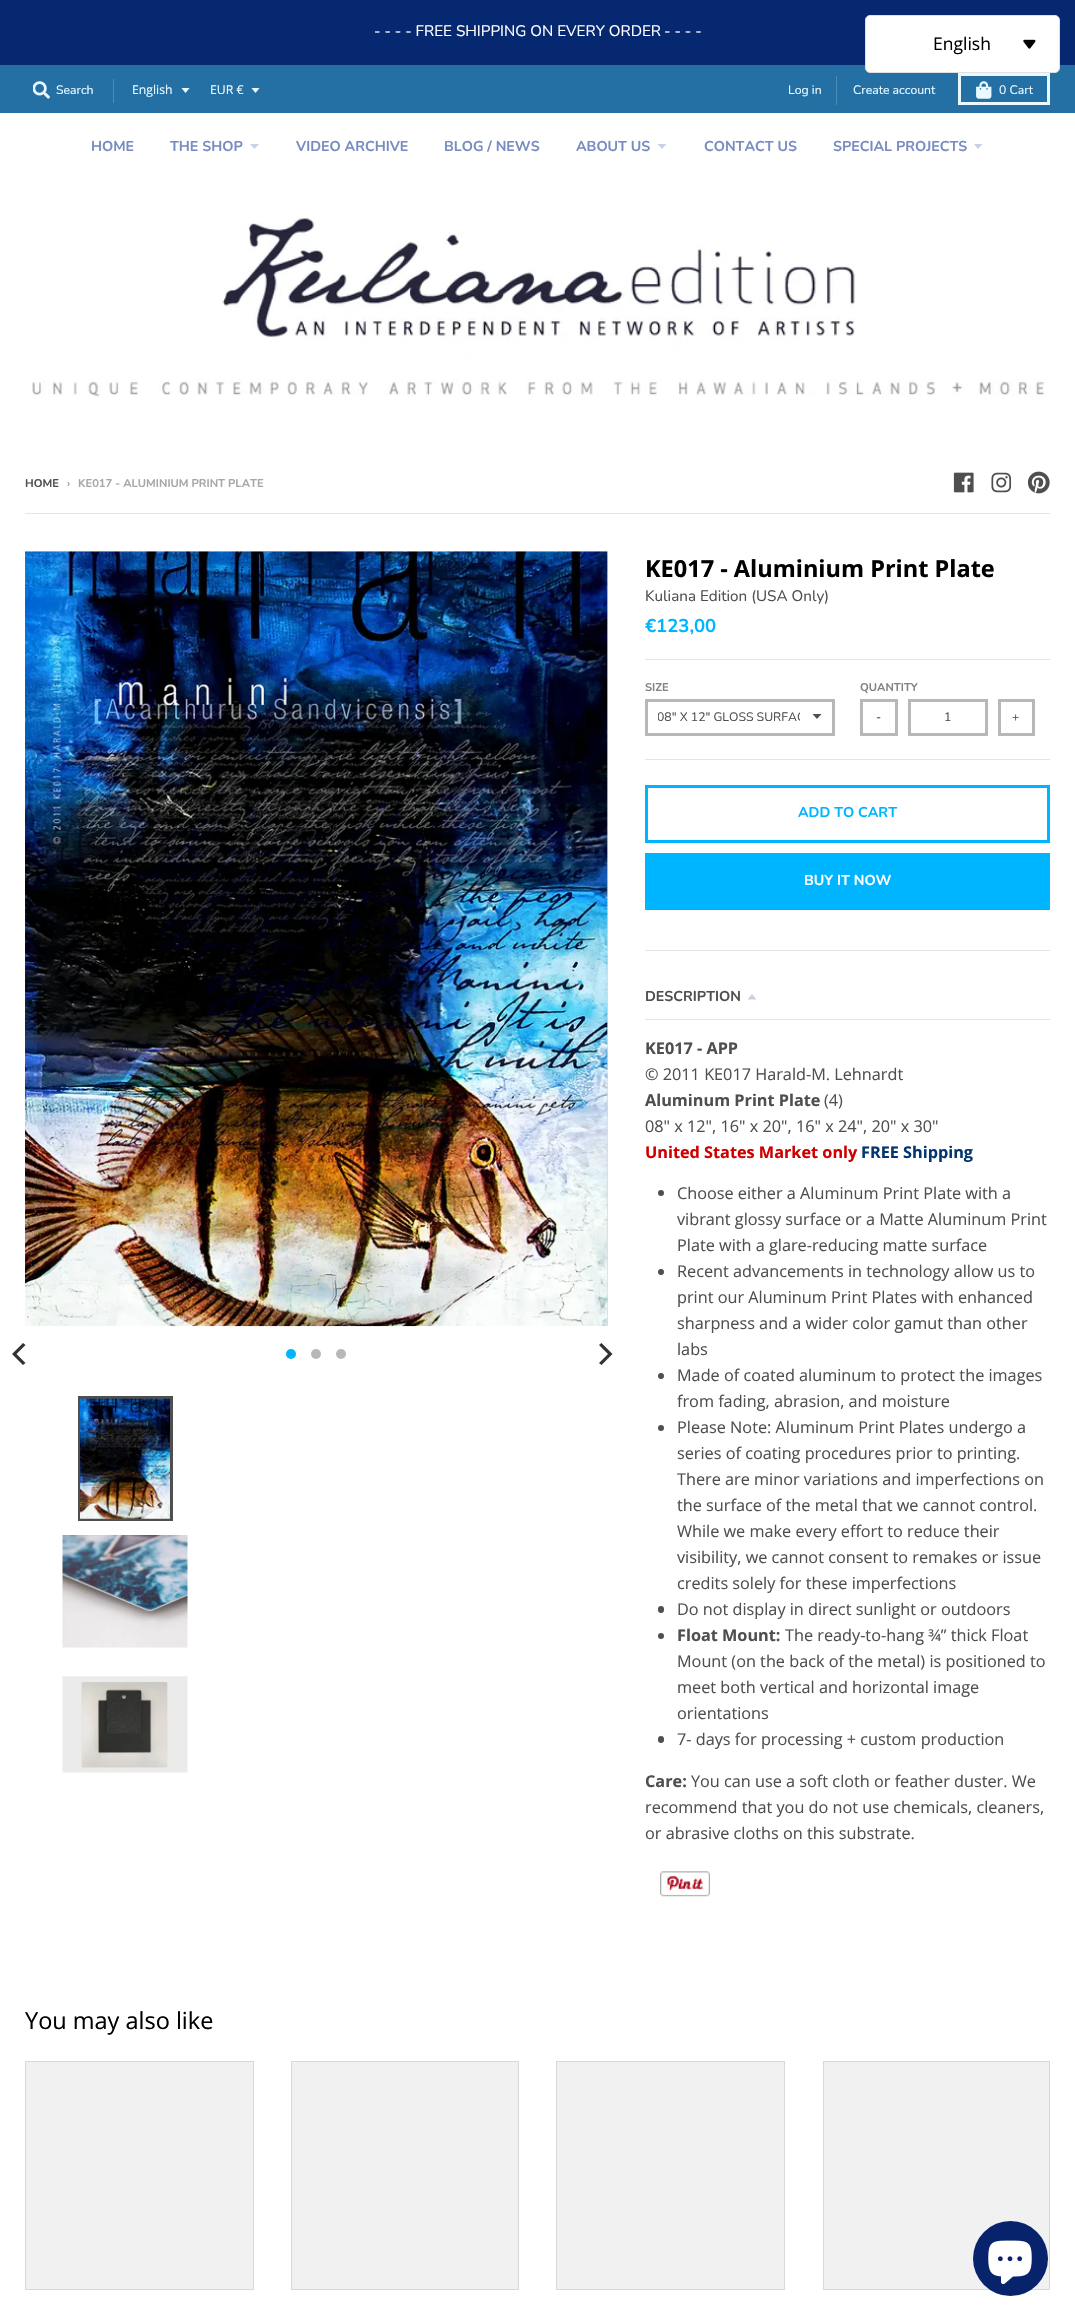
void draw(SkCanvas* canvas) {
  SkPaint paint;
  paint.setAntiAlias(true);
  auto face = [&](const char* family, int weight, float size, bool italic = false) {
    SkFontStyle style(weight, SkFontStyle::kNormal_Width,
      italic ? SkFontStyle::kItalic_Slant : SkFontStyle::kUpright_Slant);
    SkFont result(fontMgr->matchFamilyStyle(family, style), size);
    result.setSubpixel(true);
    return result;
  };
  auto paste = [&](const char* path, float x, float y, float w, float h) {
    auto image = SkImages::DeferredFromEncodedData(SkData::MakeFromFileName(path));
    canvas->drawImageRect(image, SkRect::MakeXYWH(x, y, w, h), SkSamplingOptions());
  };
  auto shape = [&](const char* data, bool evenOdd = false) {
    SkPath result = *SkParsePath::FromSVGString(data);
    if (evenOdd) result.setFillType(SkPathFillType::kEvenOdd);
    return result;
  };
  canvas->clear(0xffffffff);
  paint.setColor(0xff052870);
  canvas->drawRect(SkRect::MakeXYWH(0, 0, 1075, 65), paint);
  paint.setColor(0xff2470a4);
  canvas->drawRect(SkRect::MakeXYWH(0, 65, 1075, 48), paint);
  paste("img/1.png", 33, 81, 17, 18);
  paint.setColor(0xff4b8bb6);
  canvas->drawRect(SkRect::MakeXYWH(113, 79, 1, 24), paint);
  canvas->save();
  canvas->clipRect(SkRect::MakeXYWH(181, 88, 10, 6));
  paint.setColor(0xffe9f9ff);
  canvas->drawPath(shape("M181 87.5L185.5 93L190 87.5Z"), paint);
  canvas->restore();
  canvas->save();
  canvas->clipRect(SkRect::MakeXYWH(251, 88, 10, 6));
  canvas->drawPath(shape("M251 87.5L255.5 93L260 87.5Z"), paint);
  canvas->restore();
  paint.setColor(0xff4b8bb6);
  canvas->drawRect(SkRect::MakeXYWH(836, 76, 1, 29), paint);
  paint.setStroke(true);
  paint.setStrokeWidth(3);
  paint.setColor(0xffe9f9ff);
  canvas->drawRect(SkRect::MakeXYWH(959.5f, 74.5f, 89, 29), paint);
  paste("img/2.png", 976, 81, 16, 18);
  paint.setStroke(false);
  paint.setColor(0xffc9d1e6);
  canvas->drawPath(shape("M250 144L254.5 149L259 144Z"), paint);
  canvas->drawPath(shape("M657.5 144L662 149L666.5 144Z"), paint);
  canvas->drawPath(shape("M974 144L978 149L982.5 144Z"), paint);
  paste("img/3.png", 32, 217, 1013, 180);
  paste("img/4.png", 953, 472, 21, 21);
  paste("img/5.png", 991, 472, 21, 21);
  paste("img/6.png", 1028, 471, 22, 23);
  paint.setColor(0xffe5e5e5);
  canvas->drawRect(SkRect::MakeXYWH(25, 513, 1025, 1), paint);
  canvas->save();
  canvas->clipRect(SkRect::MakeXYWH(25, 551, 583, 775));
  paint.setColor(0x33000000);
  paint.setMaskFilter(SkMaskFilter::MakeBlur(kNormal_SkBlurStyle, 1));
  canvas->drawRect(SkRect::MakeXYWH(25, 553, 583, 775), paint);
  paint.setMaskFilter(nullptr);
  canvas->restore();
  paste("img/7.png", 25, 551, 583, 776);
  paint.setColor(0xff333333);
  canvas->drawPath(shape("M12 1354L23 1365L25.5 1363L16.5 1354L25.5 1345L23 1343Z"), paint);
  paint.setColor(0xff00b5ff);
  canvas->drawCircle(291, 1354, 5, paint);
  paint.setColor(0xffb8b8b8);
  canvas->drawCircle(316, 1354, 5, paint);
  canvas->drawCircle(341, 1354, 5, paint);
  paint.setColor(0xbfffffff);
  canvas->drawRect(SkRect::MakeXYWH(603, 1326, 1, 1), paint);
  paint.setColor(0xff333333);
  canvas->drawPath(shape("M612.5 1354L601.5 1343L599 1345L608 1354L599 1363L601.5 1365Z"), paint);
  paint.setStroke(true);
  paint.setColor(0xff4f4f4f);
  canvas->drawRect(SkRect::MakeXYWH(79.5f, 1397.5f, 92, 122), paint);
  paste("img/8.png", 80, 1398, 90, 121);
  paste("img/9.png", 62, 1535, 126, 113);
  paste("img/10.png", 62, 1676, 126, 97);
  paint.setStroke(false);
  {
    const struct { float x, y, w, h; SkColor color; } items[] = {
      {645, 950, 405, 1, 0xffe5e5e5},
      {645, 659, 405, 1, 0xffe5e5e5},
      {645, 759, 405, 1, 0xffe5e5e5},
    };
    for (auto [x, y, w, h, color] : items) {
      paint.setColor(color);
      canvas->drawRect(SkRect::MakeXYWH(x, y, w, h), paint);
    }
  }
  paint.setColor(0xff4f4f4f);
  canvas->drawPath(shape("M812.5 714L817 719L821.5 714Z"), paint);
  paint.setStroke(true);
  paint.setColor(0xffb8b8b8);
  canvas->drawRect(SkRect::MakeXYWH(646.5f, 700.5f, 187, 34), paint);
  canvas->drawRect(SkRect::MakeXYWH(861.5f, 700.5f, 35, 34), paint);
  canvas->drawRect(SkRect::MakeXYWH(909.5f, 700.5f, 77, 34), paint);
  canvas->drawRect(SkRect::MakeXYWH(999.5f, 700.5f, 34, 34), paint);
  paint.setColor(0xff00b5ff);
  canvas->drawRect(SkRect::MakeXYWH(646.5f, 786.5f, 402, 55), paint);
  paint.setStroke(false);
  canvas->drawRect(SkRect::MakeXYWH(645, 853, 405, 57), paint);
  paint.setColor(0xffe5e5e5);
  canvas->drawRect(SkRect::MakeXYWH(645, 1019, 405, 1), paint);
  paint.setColor(0xffc9d1e6);
  canvas->drawPath(shape("M747.5 999.5L752 994L756.5 999.5Z"), paint);
  paint.setColor(0xff4f4f4f);
  canvas->drawCircle(661, 1193, 3, paint);
  canvas->drawCircle(661, 1272, 3, paint);
  canvas->drawCircle(661, 1376, 3, paint);
  canvas->drawCircle(661, 1428, 3, paint);
  canvas->drawRoundRect(SkRect::MakeXYWH(658, 1606, 6, 7), 3, 3, paint);
  canvas->drawCircle(661, 1636, 3, paint);
  canvas->drawRoundRect(SkRect::MakeXYWH(658, 1736, 6, 7), 3, 3, paint);
  paste("img/11.png", 660, 1871, 50, 26);
  paint.setColor(0xfff1f1f1);
  canvas->drawRect(SkRect::MakeXYWH(25.5f, 2061.5f, 228, 228), paint);
  paint.setStroke(true);
  paint.setStrokeWidth(1);
  paint.setColor(0xffd8d8d8);
  canvas->drawRect(SkRect::MakeXYWH(25.5f, 2061.5f, 228, 228), paint);
  paint.setStroke(false);
  paint.setColor(0xfff1f1f1);
  canvas->drawRect(SkRect::MakeXYWH(291.5f, 2061.5f, 227, 228), paint);
  paint.setStroke(true);
  paint.setColor(0xffd8d8d8);
  canvas->drawRect(SkRect::MakeXYWH(291.5f, 2061.5f, 227, 228), paint);
  paint.setStroke(false);
  paint.setColor(0xfff1f1f1);
  canvas->drawRect(SkRect::MakeXYWH(556.5f, 2061.5f, 228, 228), paint);
  paint.setStroke(true);
  paint.setColor(0xffd8d8d8);
  canvas->drawRect(SkRect::MakeXYWH(556.5f, 2061.5f, 228, 228), paint);
  paint.setStroke(false);
  paint.setColor(0xfff1f1f1);
  canvas->drawRect(SkRect::MakeXYWH(823.5f, 2061.5f, 226, 228), paint);
  paint.setStroke(true);
  paint.setColor(0xffd8d8d8);
  canvas->drawRect(SkRect::MakeXYWH(823.5f, 2061.5f, 226, 228), paint);
  paint.setStroke(false);
  paint.setColor(0xffffffff);
  canvas->drawRoundRect(SkRect::MakeXYWH(865.5f, 15.5f, 194, 57), 4.5f, 4.5f, paint);
  paint.setStroke(true);
  paint.setColor(0xffe0e0e0);
  canvas->drawRoundRect(SkRect::MakeXYWH(865.5f, 15.5f, 194, 57), 4.5f, 4.5f, paint);
  paste("img/12.png", 1023, 39, 13, 10);
  paint.setStroke(false);
  paint.setColor(0xff07236b);
  canvas->drawCircle(1010.5f, 2258.5f, 37.5f, paint);
  paste("img/13.png", 988, 2240, 44, 45);
  auto f0 = face("Nunito", 400, 15.25f);
  paint.setColor(0xffffffff);
  canvas->drawString("- - - - FREE SHIPPING ON EVERY ORDER", 374, 36, f0, paint);
  canvas->drawString("- - - -", 664, 36, f0, paint);
  auto f1 = face("Nunito", 400, 12.25f);
  paint.setColor(0xffe9f9ff);
  canvas->drawString("Search", 56, 94, f1, paint);
  auto f2 = face("Open Sans", 400, 12.25f);
  canvas->drawString("English", 132, 94, f2, paint);
  canvas->drawString("EUR €", 210, 94, f2, paint);
  {
    const struct { const char* s; float x, y; } items[] = {
      {"Log in", 788, 94},
      {"Create account", 853, 94},
      {"0 Cart", 999, 94},
    };
    for (auto [s, x, y] : items) {
      canvas->drawString(s, x, y, f1, paint);
    }
  }
  auto f3 = face("Nunito", 700, 14.25f);
  paint.setColor(0xff778cc1);
  {
    const struct { const char* s; float x, y; } items[] = {
      {"HOME", 91, 151},
      {"THE SHOP", 170, 151},
      {"VIDEO ARCHIVE", 296, 151},
      {"BLOG / NEWS", 444, 151},
      {"ABOUT US", 576, 151},
      {"CONTACT US", 704, 151},
      {"SPECIAL PROJECTS", 833, 151},
    };
    for (auto [s, x, y] : items) {
      canvas->drawString(s, x, y, f3, paint);
    }
  }
  auto f4 = face("Nunito", 700, 11.2f);
  paint.setColor(0xff4f4f4f);
  canvas->drawString("HOME", 25, 487, f4, paint);
  paint.setColor(0xffa7a7a7);
  canvas->drawString("›", 67, 487, f4, paint);
  canvas->drawString("KE017 - ALUMINIUM PRINT PLATE", 78, 487, f4, paint);
  auto f5 = face("Open Sans", 700, 23.5f);
  paint.setColor(0xff000000);
  canvas->drawString("KE017 - Aluminium Print Plate", 645, 577, f5, paint);
  paint.setColor(0xff4f4f4f);
  canvas->drawString("Kuliana Edition (USA Only)", 645, 601, f0, paint);
  auto f6 = face("Nunito", 700, 18.5f);
  paint.setColor(0xff00b5ff);
  canvas->drawString("€123,00", 645, 632, f6, paint);
  paint.setColor(0xff838383);
  canvas->drawString("SIZE", 645, 691, f4, paint);
  canvas->save();
  canvas->clipRect(SkRect::MakeXYWH(658, 708, 142, 18));
  paint.setColor(0xff4f4f4f);
  canvas->drawString("08\" X 12\" GLOSS SURFAC", 657, 721, f1, paint);
  canvas->restore();
  paint.setColor(0xff838383);
  canvas->drawString("QUANTITY", 860, 691, f4, paint);
  paint.setColor(0xff4f4f4f);
  {
    const struct { const char* s; float x, y; } items[] = {
      {"-", 876, 721},
      {"1", 944, 721},
      {"+", 1012, 721},
    };
    for (auto [s, x, y] : items) {
      canvas->drawString(s, x, y, f1, paint);
    }
  }
  paint.setColor(0xff00b5ff);
  canvas->drawString("ADD TO CART", 798, 817, f3, paint);
  paint.setColor(0xffffffff);
  canvas->drawString("BUY IT NOW", 804, 885, f3, paint);
  paint.setColor(0xff4f4f4f);
  canvas->drawString("DESCRIPTION", 645, 1001, f3, paint);
  auto f7 = face("Open Sans", 700, 16.25f);
  canvas->drawString("KE017 - APP", 645, 1054, f7, paint);
  auto f8 = face("Open Sans", 400, 16.25f);
  canvas->drawString("© 2011 KE017 Harald-M. Lehnardt", 645, 1080, f8, paint);
  canvas->drawString("Aluminum Print Plate", 645, 1106, f7, paint);
  canvas->drawString("(4)", 824, 1106, f8, paint);
  canvas->drawString("08\" x 12\", 16\" x 20\", 16\" x 24\", 20\" x 30\"", 645, 1132, f8, paint);
  paint.setColor(0xffcf0000);
  canvas->drawString("United States Market only", 645, 1158, f7, paint);
  paint.setColor(0xff023670);
  canvas->drawString("FREE Shipping", 861, 1158, f7, paint);
  paint.setColor(0xff4f4f4f);
  {
    const struct { const char* s; float x, y; } items[] = {
      {"Choose either a Aluminum Print Plate with a", 677, 1199},
      {"vibrant glossy surface or a Matte Aluminum Print", 677, 1225},
      {"Plate with a glare-reducing matte surface", 677, 1251},
      {"Recent advancements in technology allow us to", 677, 1277},
      {"print our Aluminum Print Plates with enhanced", 677, 1303},
      {"sharpness and a wider color gamut than other", 677, 1329},
      {"labs", 677, 1355},
      {"Made of coated aluminum to protect the images", 677, 1381},
      {"from fading, abrasion, and moisture", 677, 1407},
      {"Please Note: Aluminum Print Plates undergo a", 677, 1433},
      {"series of coating procedures prior to printing.", 677, 1459},
      {"There are minor variations and imperfections on", 677, 1485},
      {"the surface of the metal that we cannot control.", 677, 1511},
      {"While we make every effort to reduce their", 677, 1537},
      {"visibility, we cannot consent to remakes or issue", 677, 1563},
      {"credits solely for these imperfections", 677, 1589},
      {"Do not display in direct sunlight or outdoors", 677, 1615},
    };
    for (auto [s, x, y] : items) {
      canvas->drawString(s, x, y, f8, paint);
    }
  }
  canvas->drawString("Float Mount:", 677, 1641, f7, paint);
  {
    const struct { const char* s; float x, y; } items[] = {
      {"The ready-to-hang ¾” thick Float", 785, 1641},
      {"Mount (on the back of the metal) is positioned to", 677, 1667},
      {"meet both vertical and horizontal image", 677, 1693},
      {"orientations", 677, 1719},
      {"7- days for processing + custom production", 677, 1745},
    };
    for (auto [s, x, y] : items) {
      canvas->drawString(s, x, y, f8, paint);
    }
  }
  canvas->drawString("Care:", 645, 1787, f7, paint);
  {
    const struct { const char* s; float x, y; } items[] = {
      {"You can use a soft cloth or feather duster. We", 691, 1787},
      {"recommend that you do not use chemicals, cleaners,", 645, 1813},
      {"or abrasive cloths on this substrate.", 645, 1839},
    };
    for (auto [s, x, y] : items) {
      canvas->drawString(s, x, y, f8, paint);
    }
  }
  auto f9 = face("Open Sans", 400, 23.5f);
  paint.setColor(0xff000000);
  canvas->drawString("You may also like", 25, 2029, f9, paint);
  auto f10 = face("Open Sans", 400, 17.5f);
  canvas->drawString("English", 933, 50, f10, paint);
}
